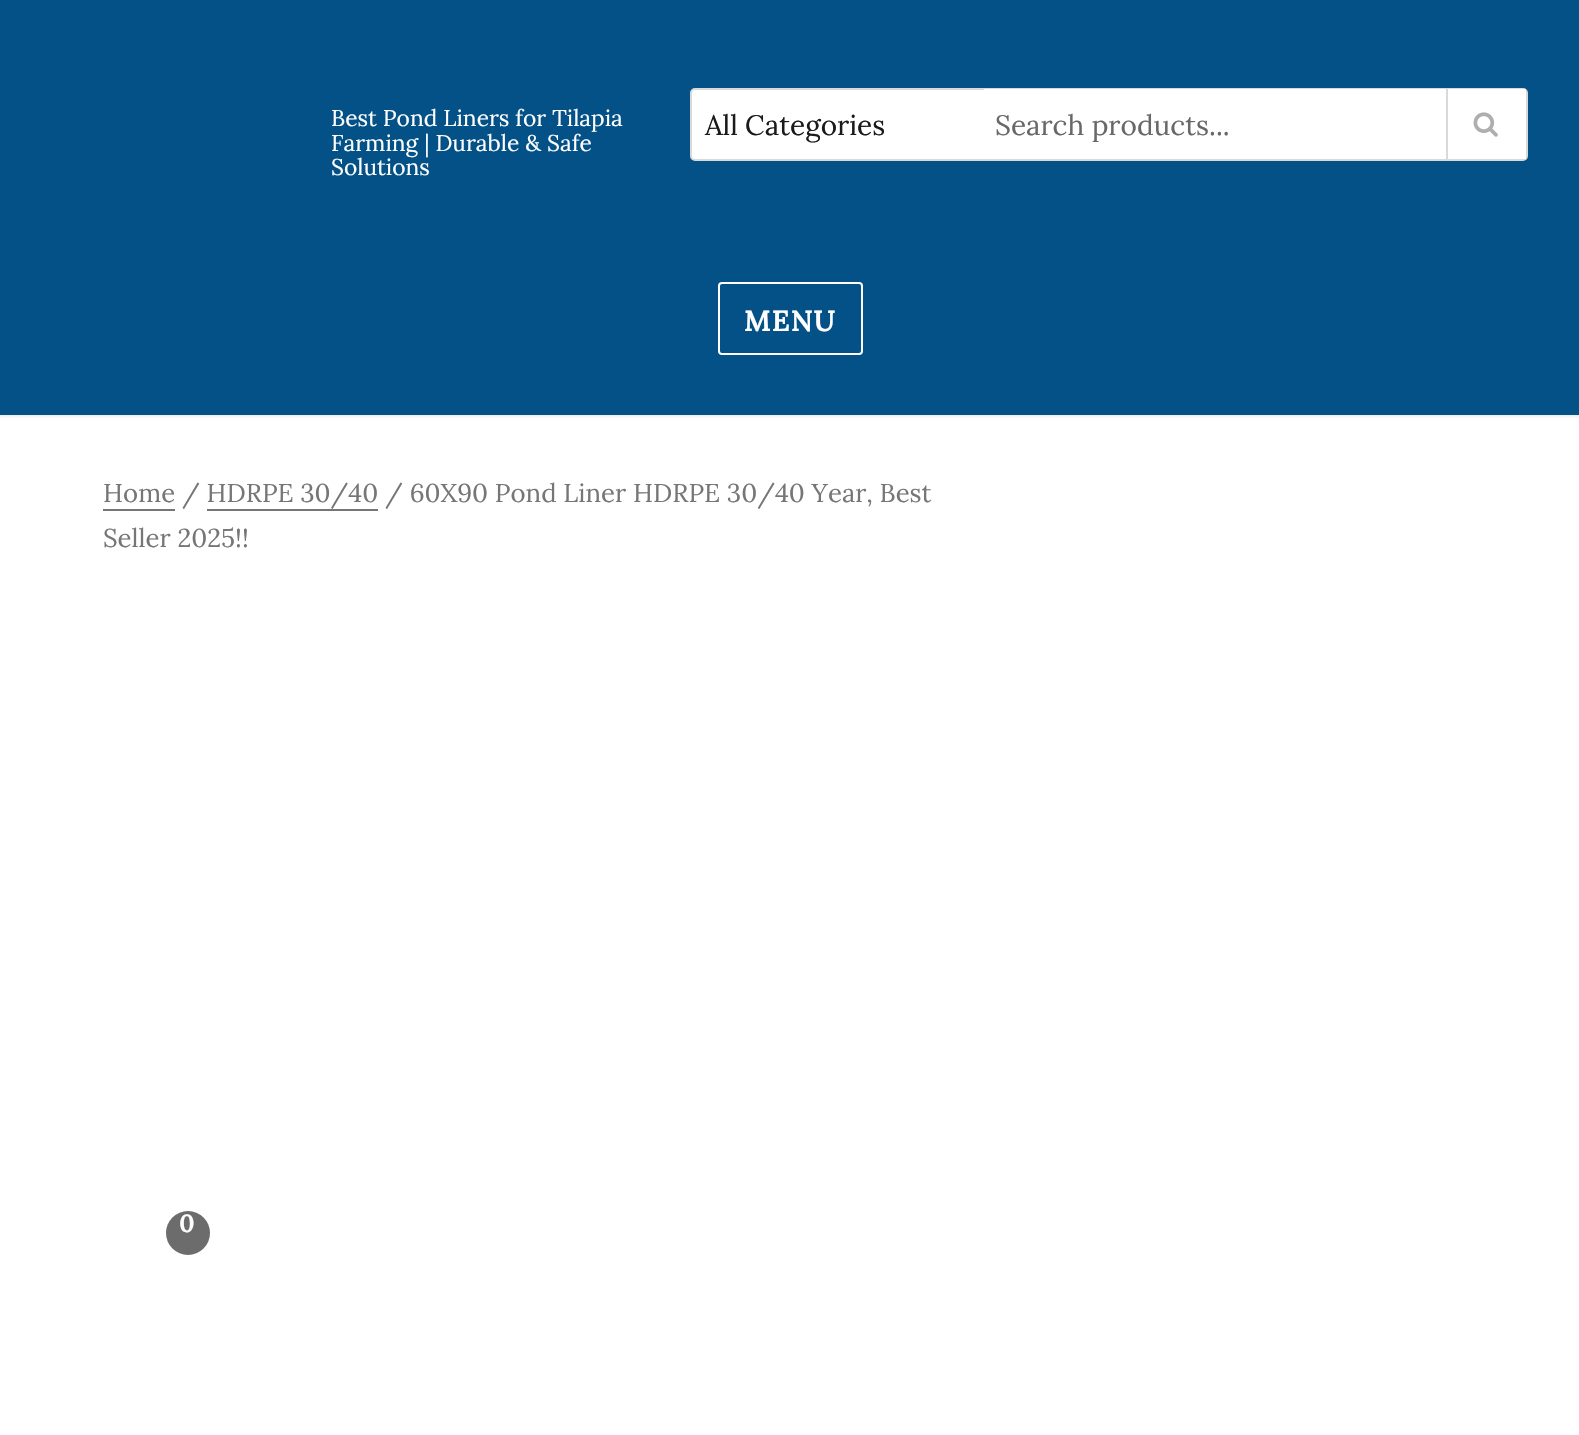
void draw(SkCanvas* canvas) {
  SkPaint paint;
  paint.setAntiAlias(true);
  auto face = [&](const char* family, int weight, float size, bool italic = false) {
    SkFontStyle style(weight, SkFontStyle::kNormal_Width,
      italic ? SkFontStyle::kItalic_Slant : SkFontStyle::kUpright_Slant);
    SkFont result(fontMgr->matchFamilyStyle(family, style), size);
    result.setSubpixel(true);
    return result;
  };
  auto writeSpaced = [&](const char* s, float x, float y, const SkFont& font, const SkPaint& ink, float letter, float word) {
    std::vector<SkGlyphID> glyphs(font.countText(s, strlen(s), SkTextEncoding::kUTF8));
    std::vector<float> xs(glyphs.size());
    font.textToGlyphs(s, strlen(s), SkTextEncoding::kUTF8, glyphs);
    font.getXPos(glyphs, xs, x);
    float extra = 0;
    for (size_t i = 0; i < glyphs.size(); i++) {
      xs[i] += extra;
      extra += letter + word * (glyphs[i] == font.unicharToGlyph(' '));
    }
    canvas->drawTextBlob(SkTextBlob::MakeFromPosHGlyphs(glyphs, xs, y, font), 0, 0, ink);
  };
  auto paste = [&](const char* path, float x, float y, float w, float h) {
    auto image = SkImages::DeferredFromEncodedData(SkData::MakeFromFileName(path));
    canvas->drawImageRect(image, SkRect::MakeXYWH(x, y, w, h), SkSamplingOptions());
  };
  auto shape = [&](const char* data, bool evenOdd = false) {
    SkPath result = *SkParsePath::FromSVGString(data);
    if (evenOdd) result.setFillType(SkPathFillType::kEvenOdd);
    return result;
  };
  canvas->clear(0xffffffff);
  paint.setColor(0xffeeeeee);
  paint.setMaskFilter(SkMaskFilter::MakeBlur(kNormal_SkBlurStyle, 1));
  canvas->drawRect(SkRect::MakeXYWH(0, 2, 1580, 415), paint);
  paint.setMaskFilter(nullptr);
  paint.setColor(0xff035186);
  canvas->drawRect(SkRect::MakeXYWH(0, 0, 1579, 415), paint);
  paint.setColor(0xffffffff);
  canvas->drawRoundRect(SkRect::MakeXYWH(691, 89, 836, 71), 4, 4, paint);
  paint.setStroke(true);
  paint.setStrokeWidth(2);
  paint.setColor(0xffd9d9d9);
  canvas->drawRoundRect(SkRect::MakeXYWH(691, 89, 836, 71), 4, 4, paint);
  paint.setStroke(false);
  paint.setColor(0xffffffff);
  canvas->drawRect(SkRect::MakeXYWH(984, 89, 542, 70), paint);
  paint.setColor(0xffd9d9d9);
  canvas->drawRect(SkRect::MakeXYWH(1446, 89, 2, 70), paint);
  paste("img/1.png", 1473, 112, 25, 25);
  paint.setStroke(true);
  paint.setColor(0xffffffff);
  canvas->drawRoundRect(SkRect::MakeXYWH(719, 283, 143, 71), 3, 3, paint);
  paint.setStroke(false);
  paint.setColor(0xff767676);
  canvas->drawPath(shape("M103 478V511H175V509H103Z"), paint);
  canvas->drawRect(SkRect::MakeXYWH(207, 509, 171, 2), paint);
  paint.setColor(0xff6c6c6c);
  canvas->drawCircle(188, 1233, 22, paint);
  auto f0 = face("Lora", 400, 22.75f);
  paint.setColor(0xffffffff);
  {
    const struct { const char* s; float x, y; } items[] = {
      {"Best Pond Liners for Tilapia", 331, 126},
      {"Farming | Durable & Safe", 331, 151},
      {"Solutions", 331, 175},
    };
    for (auto [s, x, y] : items) {
      canvas->drawString(s, x, y, f0, paint);
    }
  }
  auto f1 = face("Lora", 400, 28);
  paint.setColor(0xff1a1a1a);
  canvas->drawString("All Categories", 705, 135, f1, paint);
  canvas->save();
  canvas->clipRect(SkRect::MakeXYWH(996, 107, 518, 35));
  paint.setColor(0xff686868);
  canvas->drawString("Search products...", 995, 135, f1, paint);
  canvas->restore();
  auto f2 = face("Lora", 700, 28);
  paint.setColor(0xffffffff);
  writeSpaced("MENU", 744, 331, f2, paint, 1.5f, 0);
  auto f3 = face("Lora", 400, 25.75f);
  paint.setColor(0xff767676);
  canvas->drawString("Home / HDRPE 30/40 / 60X90 Pond Liner HDRPE 30/40 Year, Best", 103, 502, f3, paint);
  canvas->drawString("Seller 2025!!", 103, 547, f3, paint);
  auto f4 = face("Lora", 700, 24);
  paint.setColor(0xffffffff);
  writeSpaced("0", 179, 1232, f4, paint, 2, 0);
}
